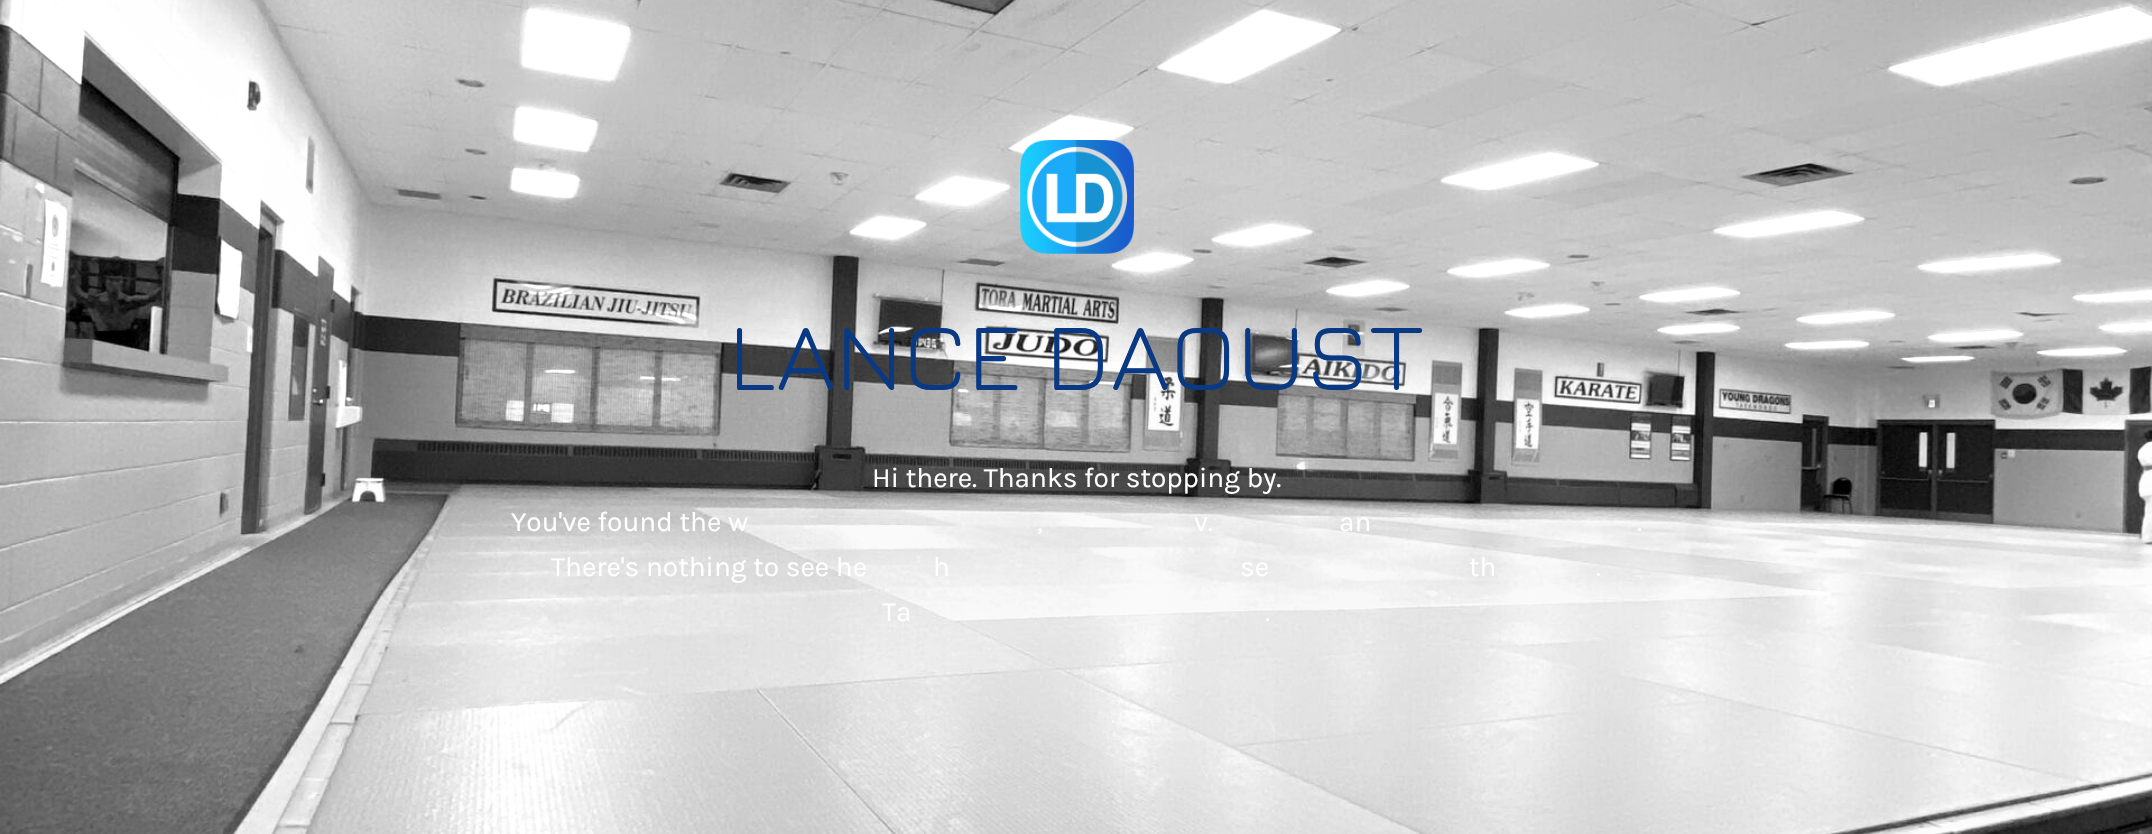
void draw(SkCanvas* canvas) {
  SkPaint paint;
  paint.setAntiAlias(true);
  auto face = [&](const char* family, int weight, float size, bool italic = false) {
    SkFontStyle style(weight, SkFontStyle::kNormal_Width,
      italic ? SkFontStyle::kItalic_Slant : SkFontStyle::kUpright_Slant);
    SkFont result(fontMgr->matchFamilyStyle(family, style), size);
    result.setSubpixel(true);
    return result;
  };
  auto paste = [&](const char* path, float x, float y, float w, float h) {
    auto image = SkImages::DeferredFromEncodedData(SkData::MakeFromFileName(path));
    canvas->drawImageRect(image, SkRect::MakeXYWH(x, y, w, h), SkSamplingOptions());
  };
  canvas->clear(0xffffffff);
  paste("img/1.png", 0, 0, 2152, 834);
  paste("img/2.png", 1020, 140, 114, 114);
  auto f0 = face("Jura", 300, 96.25f);
  paint.setColor(0xff0a3984);
  canvas->drawString("LANCE DAOUST", 728, 390, f0, paint);
  auto f1 = face("Karla", 400, 28);
  paint.setColor(0xffffffff);
  {
    const struct { const char* s; float x, y; } items[] = {
      {"Hi there. Thanks for stopping by.", 872, 487},
      {"You've found the w", 511, 531},
      {",", 1037, 531},
      {"v.", 1194, 531},
      {"an", 1339, 531},
      {".", 1637, 531},
      {"There's nothing to see he", 551, 576},
      {"h", 933, 576},
      {"se", 1240, 576},
      {"th", 1469, 576},
      {".", 1596, 576},
      {"Ta", 882, 621},
      {".", 1265, 621},
    };
    for (auto [s, x, y] : items) {
      canvas->drawString(s, x, y, f1, paint);
    }
  }
}
